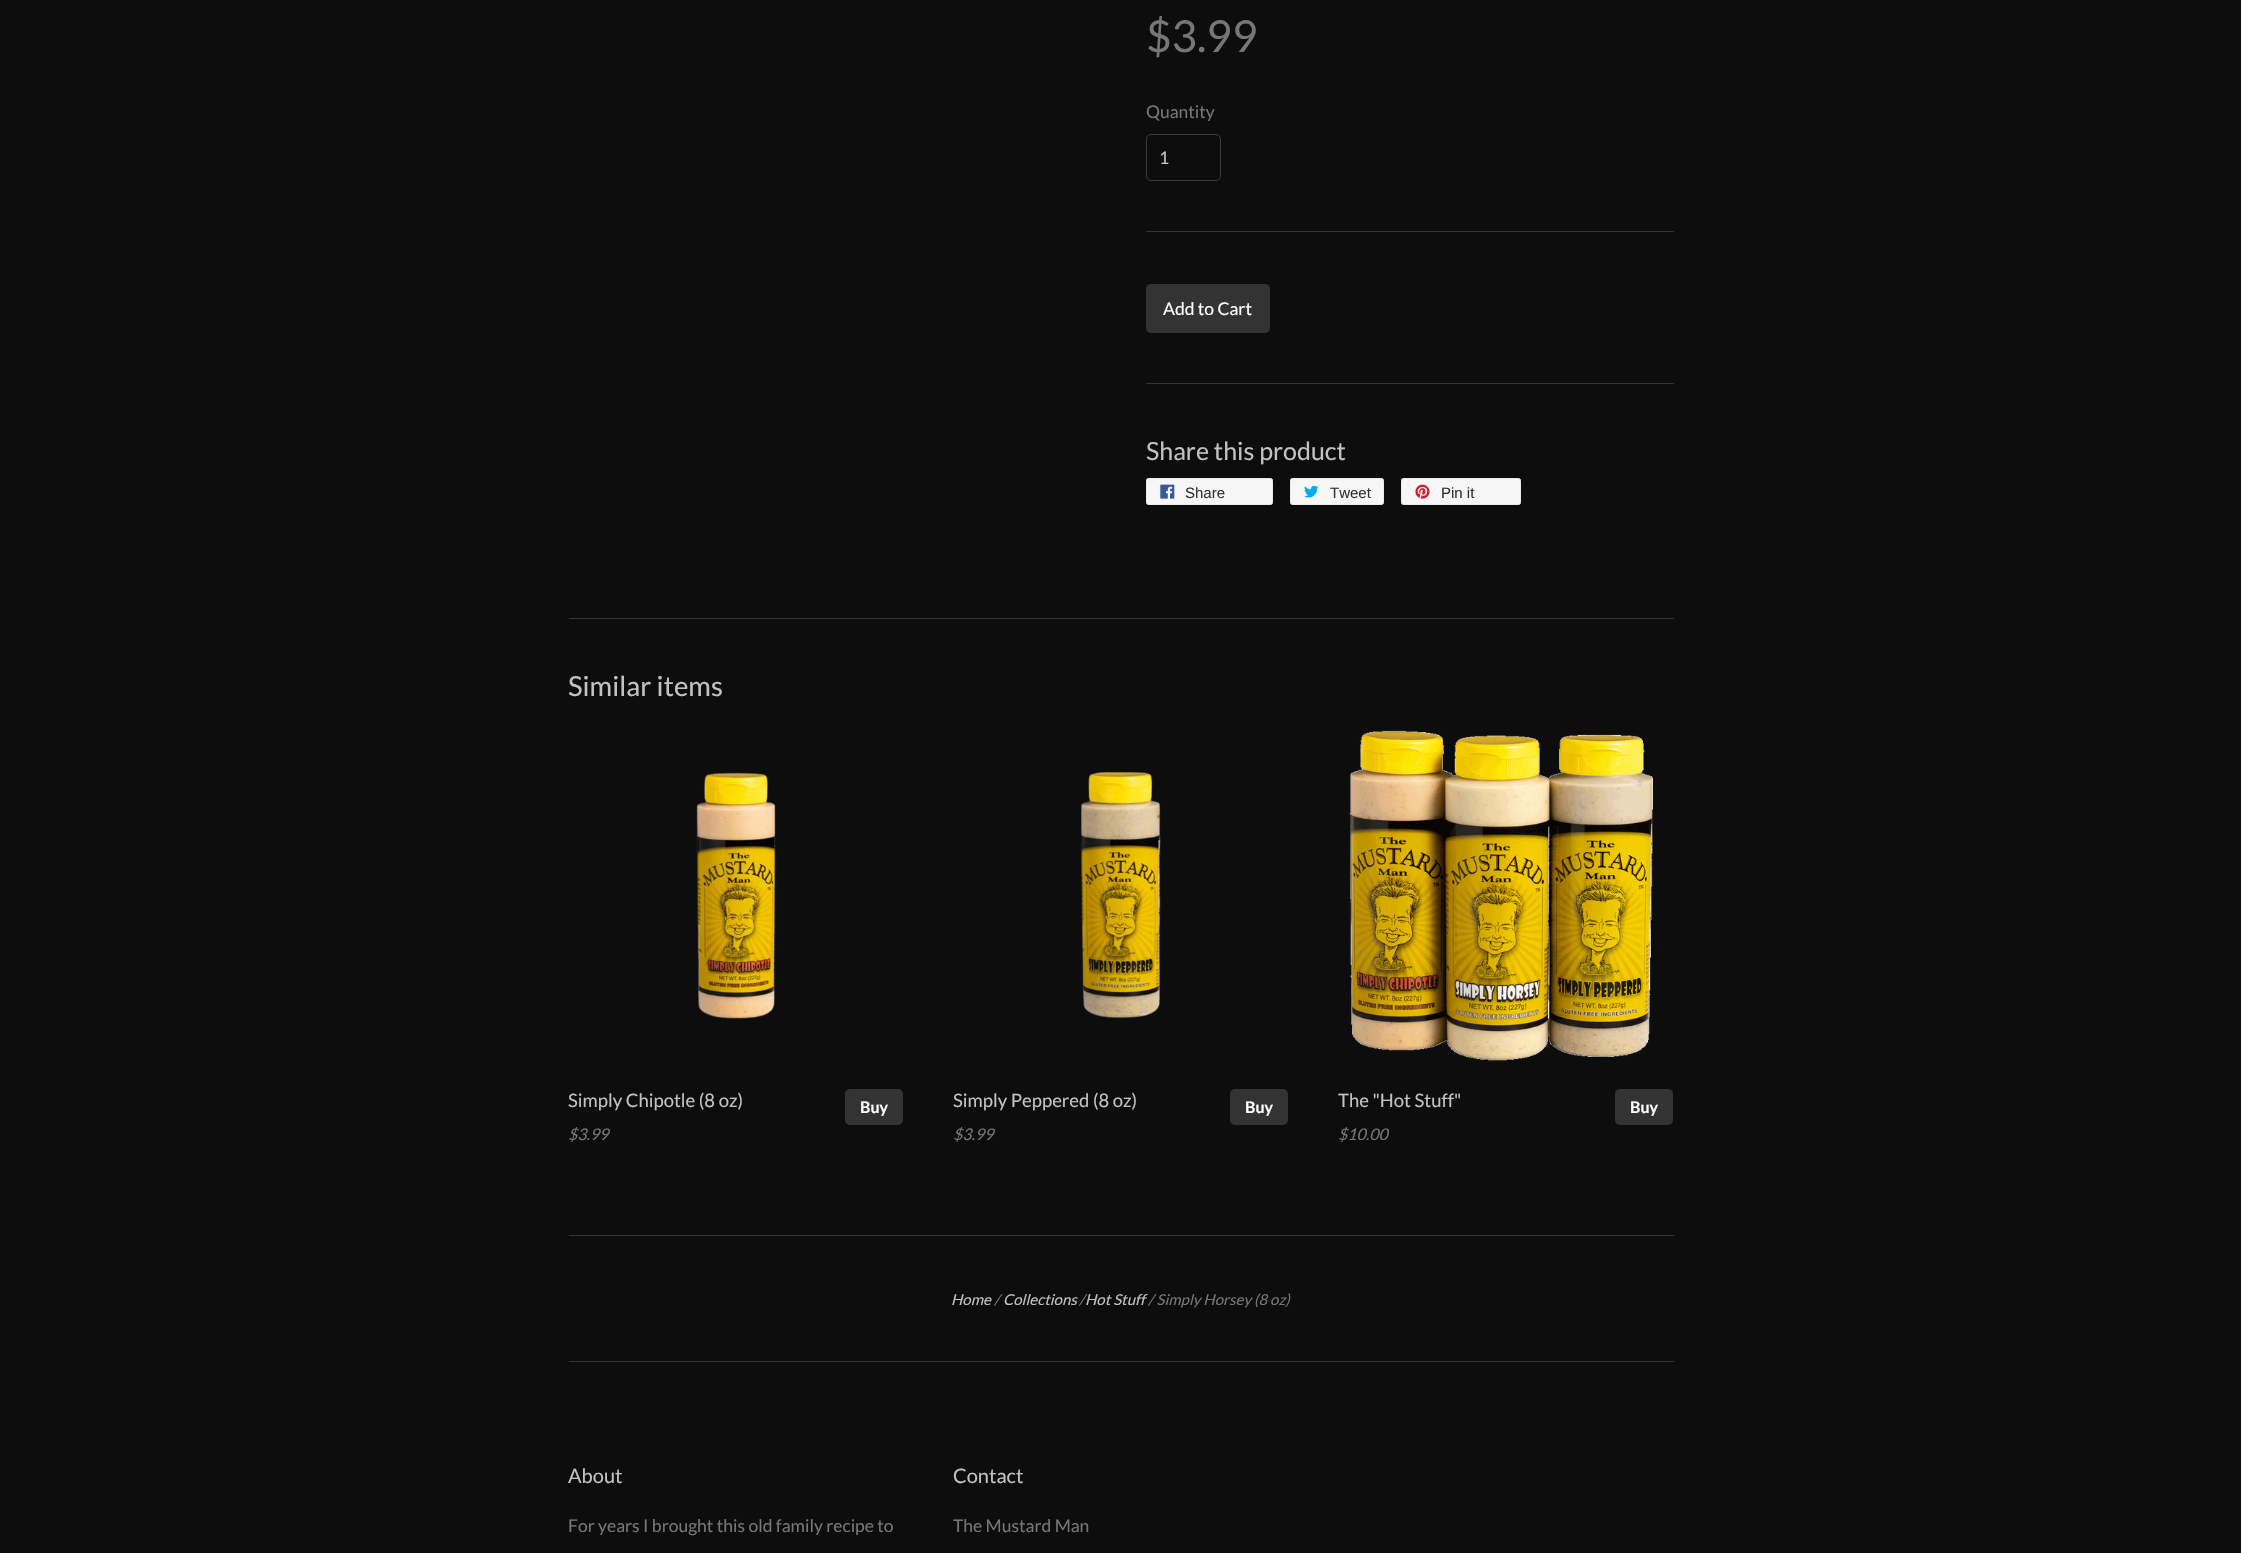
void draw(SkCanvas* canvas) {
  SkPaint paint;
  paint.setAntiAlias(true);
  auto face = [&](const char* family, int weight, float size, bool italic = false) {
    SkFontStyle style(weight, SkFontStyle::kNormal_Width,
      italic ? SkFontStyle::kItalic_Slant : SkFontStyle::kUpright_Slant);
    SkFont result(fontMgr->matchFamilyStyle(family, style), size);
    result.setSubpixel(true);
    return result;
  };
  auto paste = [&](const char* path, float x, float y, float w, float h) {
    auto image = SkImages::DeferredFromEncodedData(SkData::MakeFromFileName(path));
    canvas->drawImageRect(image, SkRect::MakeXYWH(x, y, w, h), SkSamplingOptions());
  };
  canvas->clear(0xff0d0d0d);
  paint.setStroke(true);
  paint.setStrokeWidth(1);
  paint.setColor(0xff3b3b3b);
  canvas->drawRoundRect(SkRect::MakeXYWH(1146.5f, 134.5f, 74, 46), 4.5f, 4.5f, paint);
  paint.setStroke(false);
  paint.setColor(0xff333333);
  canvas->drawRect(SkRect::MakeXYWH(1146, 231, 528, 1), paint);
  canvas->drawRoundRect(SkRect::MakeXYWH(1146, 284, 124, 49), 5, 5, paint);
  canvas->drawRect(SkRect::MakeXYWH(1146, 383, 528, 1), paint);
  paint.setColor(0xfff6f6f6);
  canvas->drawRoundRect(SkRect::MakeXYWH(1146.5f, 478.5f, 126, 26), 2, 2, paint);
  paint.setStroke(true);
  paint.setColor(0xffe9e9e9);
  canvas->drawRoundRect(SkRect::MakeXYWH(1146.5f, 478.5f, 126, 26), 2, 2, paint);
  paste("img/1.png", 1160, 484, 15, 15);
  paint.setStroke(false);
  paint.setColor(0xfff6f6f6);
  canvas->drawRoundRect(SkRect::MakeXYWH(1290.5f, 478.5f, 93, 26), 2, 2, paint);
  paint.setStroke(true);
  paint.setColor(0xffe9e9e9);
  canvas->drawRoundRect(SkRect::MakeXYWH(1290.5f, 478.5f, 93, 26), 2, 2, paint);
  paste("img/2.png", 1304, 485, 15, 13);
  paint.setStroke(false);
  paint.setColor(0xfff6f6f6);
  canvas->drawRoundRect(SkRect::MakeXYWH(1401.5f, 478.5f, 119, 26), 2, 2, paint);
  paint.setStroke(true);
  paint.setColor(0xffe9e9e9);
  canvas->drawRoundRect(SkRect::MakeXYWH(1401.5f, 478.5f, 119, 26), 2, 2, paint);
  paste("img/3.png", 1415, 484, 15, 15);
  paint.setStroke(false);
  paint.setColor(0xff333333);
  canvas->drawRect(SkRect::MakeXYWH(569, 618, 1105, 1), paint);
  paste("img/4.png", 696, 772, 80, 247);
  canvas->drawRoundRect(SkRect::MakeXYWH(845, 1089, 58, 36), 5, 5, paint);
  paste("img/5.png", 1081, 772, 80, 247);
  canvas->drawRoundRect(SkRect::MakeXYWH(1230, 1089, 58, 36), 5, 5, paint);
  paste("img/6.png", 1349, 730, 305, 332);
  canvas->drawRoundRect(SkRect::MakeXYWH(1615, 1089, 58, 36), 5, 5, paint);
  canvas->drawRect(SkRect::MakeXYWH(569, 1235, 1105, 1), paint);
  canvas->drawRect(SkRect::MakeXYWH(569, 1361, 1105, 1), paint);
  auto f0 = face("Lato", 400, 44);
  paint.setColor(0xff777777);
  canvas->drawString("$3.99", 1146, 52, f0, paint);
  auto f1 = face("Lato", 400, 17.5f);
  canvas->drawString("Quantity", 1146, 118, f1, paint);
  paint.setColor(0xffc2c2c2);
  canvas->drawString("1", 1159, 164, f1, paint);
  paint.setColor(0xffffffff);
  canvas->drawString("Add to Cart", 1163, 315, f1, paint);
  auto f2 = face("Lato", 400, 25);
  paint.setColor(0xffc2c2c2);
  canvas->drawString("Share this product", 1146, 460, f2, paint);
  auto f3 = face("Liberation Sans", 400, 15);
  paint.setColor(0xff333333);
  {
    const struct { const char* s; float x, y; } items[] = {
      {"Share", 1185, 498},
      {"Tweet", 1330, 498},
      {"Pin it", 1441, 498},
    };
    for (auto [s, x, y] : items) {
      canvas->drawString(s, x, y, f3, paint);
    }
  }
  auto f4 = face("Lato", 400, 27.5f);
  paint.setColor(0xffc2c2c2);
  canvas->drawString("Similar items", 568, 696, f4, paint);
  auto f5 = face("Lato", 400, 18.5f);
  canvas->drawString("Simply Chipotle (8 oz)", 568, 1107, f5, paint);
  auto f6 = face("Lato", 400, 16, true);
  paint.setColor(0xff777777);
  canvas->drawString("$3.99", 568, 1140, f6, paint);
  auto f7 = face("Lato", 700, 16);
  paint.setColor(0xffffffff);
  canvas->drawString("Buy", 860, 1113, f7, paint);
  paint.setColor(0xffc2c2c2);
  canvas->drawString("Simply Peppered (8 oz)", 953, 1107, f5, paint);
  paint.setColor(0xff777777);
  canvas->drawString("$3.99", 953, 1140, f6, paint);
  paint.setColor(0xffffffff);
  canvas->drawString("Buy", 1245, 1113, f7, paint);
  paint.setColor(0xffc2c2c2);
  canvas->drawString("The \"Hot Stuff\"", 1338, 1107, f5, paint);
  paint.setColor(0xff777777);
  canvas->drawString("$10.00", 1338, 1140, f6, paint);
  paint.setColor(0xffffffff);
  canvas->drawString("Buy", 1630, 1113, f7, paint);
  auto f8 = face("Lato", 400, 15, true);
  paint.setColor(0xffc2c2c2);
  canvas->drawString("Home", 951, 1305, f8, paint);
  paint.setColor(0xff777777);
  canvas->drawString("/", 994, 1305, f8, paint);
  paint.setColor(0xffc2c2c2);
  canvas->drawString("Collections", 1003, 1305, f8, paint);
  paint.setColor(0xff777777);
  canvas->drawString("/", 1079, 1305, f8, paint);
  paint.setColor(0xffc2c2c2);
  canvas->drawString("Hot Stuff", 1085, 1305, f8, paint);
  paint.setColor(0xff777777);
  canvas->drawString("/ Simply Horsey (8 oz)", 1148, 1305, f8, paint);
  auto f9 = face("Lato", 400, 20);
  paint.setColor(0xffc2c2c2);
  canvas->drawString("About", 568, 1483, f9, paint);
  paint.setColor(0xff777777);
  canvas->drawString("For years I brought this old family recipe to", 568, 1532, f1, paint);
  paint.setColor(0xffc2c2c2);
  canvas->drawString("Contact", 953, 1483, f9, paint);
  paint.setColor(0xff777777);
  canvas->drawString("The Mustard Man", 953, 1532, f1, paint);
}
